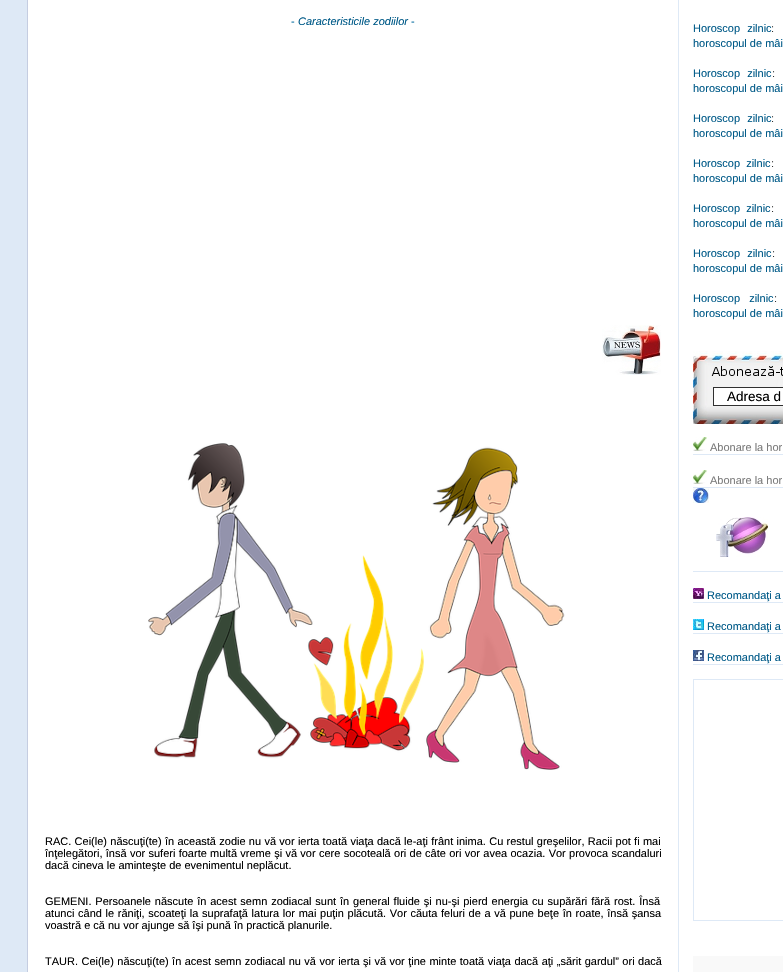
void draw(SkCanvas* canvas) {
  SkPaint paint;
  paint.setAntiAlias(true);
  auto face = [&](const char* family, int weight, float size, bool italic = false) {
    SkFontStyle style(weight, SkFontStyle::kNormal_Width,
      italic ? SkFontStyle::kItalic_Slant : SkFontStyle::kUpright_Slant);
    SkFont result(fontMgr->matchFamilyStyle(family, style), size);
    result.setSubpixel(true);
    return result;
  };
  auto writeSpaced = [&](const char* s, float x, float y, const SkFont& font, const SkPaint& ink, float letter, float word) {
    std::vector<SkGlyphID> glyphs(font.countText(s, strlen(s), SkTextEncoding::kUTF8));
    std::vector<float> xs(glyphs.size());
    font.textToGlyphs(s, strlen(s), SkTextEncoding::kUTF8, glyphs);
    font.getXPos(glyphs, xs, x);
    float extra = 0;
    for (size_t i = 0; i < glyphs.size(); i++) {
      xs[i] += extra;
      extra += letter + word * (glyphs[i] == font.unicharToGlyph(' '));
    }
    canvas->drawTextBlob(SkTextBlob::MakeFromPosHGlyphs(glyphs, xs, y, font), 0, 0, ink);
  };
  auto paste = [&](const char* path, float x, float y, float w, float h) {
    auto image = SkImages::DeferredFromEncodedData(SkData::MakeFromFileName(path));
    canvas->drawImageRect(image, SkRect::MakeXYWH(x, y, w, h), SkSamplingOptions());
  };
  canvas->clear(0xffdee9f6);
  paste("img/1.png", 27, 0, 756, 972);
  paste("img/2.png", 602, 325, 59, 50);
  paste("img/3.png", 148, 443, 417, 327);
  paste("img/4.png", 693, 351, 90, 73);
  paint.setColor(0xffffffff);
  canvas->drawRect(SkRect::MakeXYWH(713.5f, 387.5f, 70, 18), paint);
  paint.setStroke(true);
  paint.setStrokeWidth(1);
  paint.setColor(0xff303030);
  canvas->drawRect(SkRect::MakeXYWH(713.5f, 387.5f, 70, 18), paint);
  paste("img/5.png", 693, 437, 14, 14);
  paint.setStroke(false);
  paint.setColor(0xffdee9f6);
  canvas->drawRect(SkRect::MakeXYWH(693, 454, 90, 1), paint);
  paste("img/5.png", 693, 470, 14, 14);
  canvas->drawRect(SkRect::MakeXYWH(693, 487, 90, 1), paint);
  paste("img/6.png", 693, 488, 16, 15);
  paste("img/7.png", 716, 517, 52, 40);
  canvas->drawRect(SkRect::MakeXYWH(693, 571, 90, 1), paint);
  paste("img/8.png", 693, 588, 11, 11);
  canvas->drawRect(SkRect::MakeXYWH(693, 602, 90, 1), paint);
  paste("img/9.png", 693, 619, 11, 11);
  canvas->drawRect(SkRect::MakeXYWH(693, 633, 90, 1), paint);
  paste("img/10.png", 693, 650, 11, 11);
  canvas->drawRect(SkRect::MakeXYWH(693, 664, 90, 1), paint);
  paint.setStroke(true);
  canvas->drawRect(SkRect::MakeXYWH(693.5f, 679.5f, 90, 241), paint);
  paint.setStroke(false);
  paint.setColor(0xfff9f9f9);
  canvas->drawRect(SkRect::MakeXYWH(693, 956, 90, 16), paint);
  auto f0 = face("Liberation Sans", 400, 11);
  paint.setColor(0xff00699e);
  canvas->drawString("-", 291, 25, f0, paint);
  auto f1 = face("Liberation Sans", 400, 11, true);
  paint.setColor(0xff005a88);
  canvas->drawString("Caracteristicile zodiilor", 298, 25, f1, paint);
  paint.setColor(0xff00699e);
  canvas->drawString("-", 411, 25, f0, paint);
  paint.setColor(0xff000000);
  writeSpaced("RAC. Cei(le) născuţi(te) în această zodie nu vă vor ierta toată viaţa dacă le-aţi frânt inima. Cu restul greşelilor, Racii pot fi mai", 45, 845, f0, paint, 0, 0.25f);
  writeSpaced("înţelegători, însă vor suferi foarte multă vreme şi vă vor cere socoteală ori de câte ori vor avea ocazia. Vor provoca scandaluri", 45, 857, f0, paint, 0, 0.25f);
  canvas->drawString("dacă cineva le aminteşte de evenimentul neplăcut.", 45, 869, f0, paint);
  writeSpaced("GEMENI. Persoanele născute în acest semn zodiacal sunt în general fluide şi nu-şi pierd energia cu supărări fără rost. Însă", 45, 905, f0, paint, 0, 0.8f);
  writeSpaced("atunci când le răniţi, scoateţi la suprafaţă latura lor mai puţin plăcută. Vor căuta feluri de a vă pune beţe în roate, însă şansa", 45, 917, f0, paint, 0, 0.6f);
  canvas->drawString("voastră e că nu vor ajunge să îşi pună în practică planurile.", 45, 929, f0, paint);
  writeSpaced("TAUR. Cei(le) născuţi(te) în acest semn zodiacal nu vă vor ierta şi vă vor ţine minte toată viaţa dacă aţi „sărit gardul” ori dacă", 45, 965, f0, paint, 0, 0.4f);
  paint.setColor(0xff005a88);
  writeSpaced("Horoscop zilnic", 693, 32, f0, paint, 0, 4);
  paint.setColor(0xff303030);
  canvas->drawString(":", 771, 32, f0, paint);
  paint.setColor(0xff005a88);
  canvas->drawString("horoscopul de mâi", 693, 47, f0, paint);
  writeSpaced("Horoscop zilnic", 693, 77, f0, paint, 0, 4);
  paint.setColor(0xff303030);
  canvas->drawString(":", 772, 77, f0, paint);
  paint.setColor(0xff005a88);
  canvas->drawString("horoscopul de mâi", 693, 92, f0, paint);
  writeSpaced("Horoscop zilnic", 693, 122, f0, paint, 0, 4);
  paint.setColor(0xff303030);
  canvas->drawString(":", 771, 122, f0, paint);
  paint.setColor(0xff005a88);
  canvas->drawString("horoscopul de mâi", 693, 137, f0, paint);
  writeSpaced("Horoscop zilnic", 693, 167, f0, paint, 0, 3);
  paint.setColor(0xff303030);
  canvas->drawString(":", 771, 167, f0, paint);
  paint.setColor(0xff005a88);
  canvas->drawString("horoscopul de mâi", 693, 182, f0, paint);
  writeSpaced("Horoscop zilnic", 693, 212, f0, paint, 0, 3);
  paint.setColor(0xff303030);
  canvas->drawString(":", 771, 212, f0, paint);
  paint.setColor(0xff005a88);
  canvas->drawString("horoscopul de mâi", 693, 227, f0, paint);
  writeSpaced("Horoscop zilnic", 693, 257, f0, paint, 0, 4);
  paint.setColor(0xff303030);
  canvas->drawString(":", 772, 257, f0, paint);
  paint.setColor(0xff005a88);
  canvas->drawString("horoscopul de mâi", 693, 272, f0, paint);
  writeSpaced("Horoscop zilnic", 693, 302, f0, paint, 0, 6);
  paint.setColor(0xff303030);
  canvas->drawString(":", 774, 302, f0, paint);
  paint.setColor(0xff005a88);
  canvas->drawString("horoscopul de mâi", 693, 317, f0, paint);
  auto f2 = face("Liberation Sans", 400, 13.5f);
  paint.setColor(0xff000000);
  canvas->drawString("Adresa d", 727, 401, f2, paint);
  paint.setColor(0xff7b7b7b);
  canvas->drawString("Abonare la hor", 710, 451, f0, paint);
  canvas->drawString("Abonare la hor", 710, 484, f0, paint);
  paint.setColor(0xff005a88);
  {
    const struct { const char* s; float x, y; } items[] = {
      {"Recomandaţi a", 707, 599},
      {"Recomandaţi a", 707, 630},
      {"Recomandaţi a", 707, 661},
    };
    for (auto [s, x, y] : items) {
      canvas->drawString(s, x, y, f0, paint);
    }
  }
}
